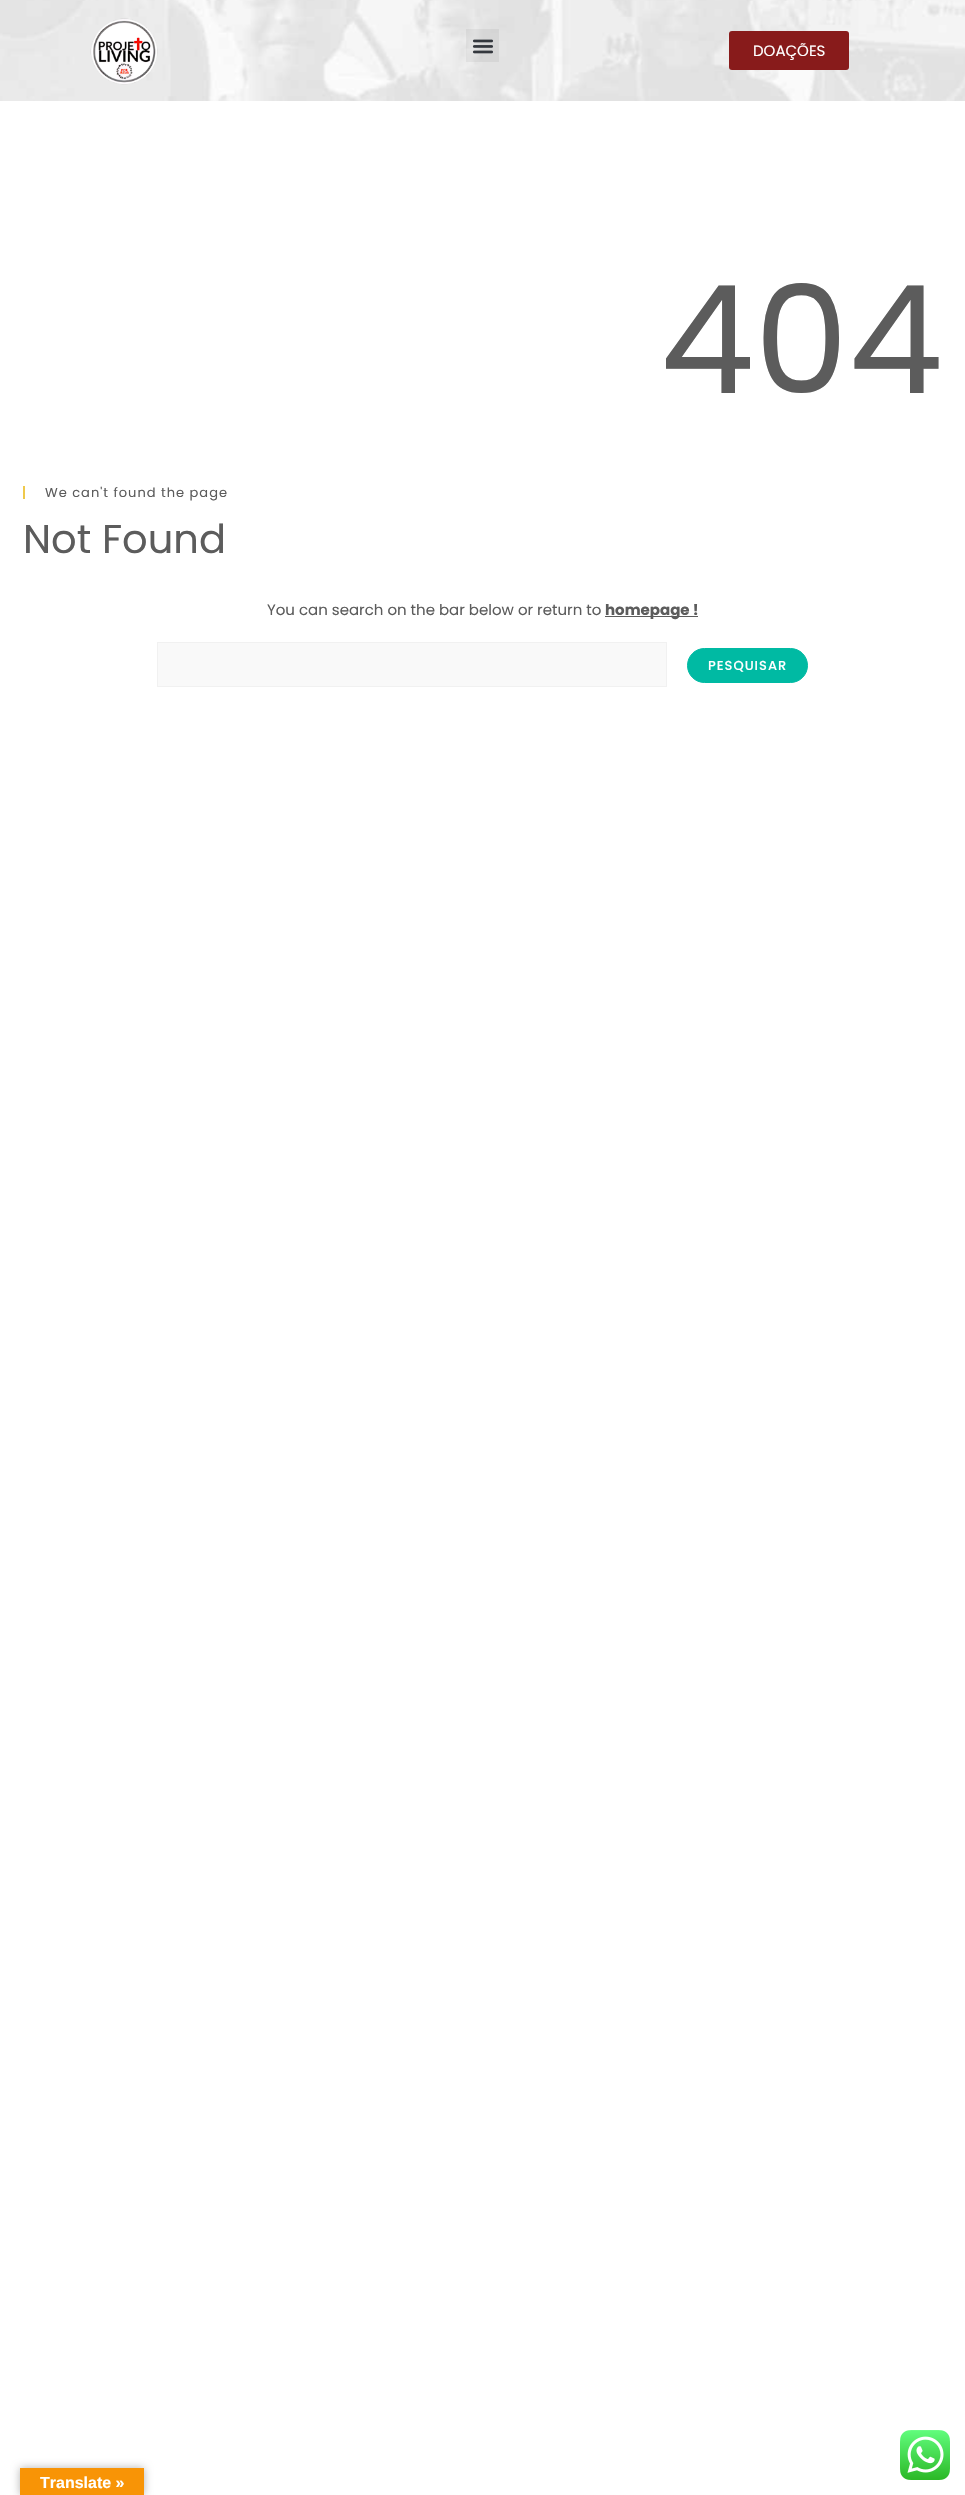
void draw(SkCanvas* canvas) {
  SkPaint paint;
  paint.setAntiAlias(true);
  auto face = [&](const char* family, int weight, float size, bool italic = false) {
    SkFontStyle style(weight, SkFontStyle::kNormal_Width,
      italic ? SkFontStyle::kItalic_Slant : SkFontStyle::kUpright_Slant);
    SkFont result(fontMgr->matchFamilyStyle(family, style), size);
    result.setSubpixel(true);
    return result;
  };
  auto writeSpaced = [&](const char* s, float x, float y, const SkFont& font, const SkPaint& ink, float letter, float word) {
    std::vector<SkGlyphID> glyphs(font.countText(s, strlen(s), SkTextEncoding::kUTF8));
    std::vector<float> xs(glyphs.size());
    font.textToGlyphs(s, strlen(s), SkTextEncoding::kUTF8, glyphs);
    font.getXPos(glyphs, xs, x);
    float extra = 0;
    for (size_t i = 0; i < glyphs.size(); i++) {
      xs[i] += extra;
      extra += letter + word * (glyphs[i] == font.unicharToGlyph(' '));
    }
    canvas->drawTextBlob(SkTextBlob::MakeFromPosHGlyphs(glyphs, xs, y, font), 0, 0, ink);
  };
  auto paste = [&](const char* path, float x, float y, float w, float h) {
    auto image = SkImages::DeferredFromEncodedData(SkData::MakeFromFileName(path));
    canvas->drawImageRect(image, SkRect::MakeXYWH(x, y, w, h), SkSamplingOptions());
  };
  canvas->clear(0xffffffff);
  paste("img/1.png", 0, 0, 965, 101);
  paste("img/2.png", 90, 18, 68, 67);
  paint.setColor(0x0d000000);
  canvas->drawRect(SkRect::MakeXYWH(466, 29, 33, 33), paint);
  paste("img/3.png", 472, 39, 21, 15);
  paint.setColor(0xff881b1b);
  canvas->drawRoundRect(SkRect::MakeXYWH(729, 31, 120, 39), 3, 3, paint);
  paint.setColor(0xffefc94c);
  canvas->drawRect(SkRect::MakeXYWH(23, 486, 2, 13), paint);
  paint.setColor(0xff5c5c5c);
  canvas->drawRect(SkRect::MakeXYWH(605, 616, 93, 1), paint);
  paint.setColor(0xfff9f9f9);
  canvas->drawRect(SkRect::MakeXYWH(157.5f, 642.5f, 509, 44), paint);
  paint.setStroke(true);
  paint.setStrokeWidth(1);
  paint.setColor(0xfff1f1f1);
  canvas->drawRect(SkRect::MakeXYWH(157.5f, 642.5f, 509, 44), paint);
  paint.setStroke(false);
  paint.setColor(0xff00baa3);
  canvas->drawRoundRect(SkRect::MakeXYWH(687.5f, 648.5f, 120, 34), 17, 17, paint);
  paint.setStroke(true);
  canvas->drawRoundRect(SkRect::MakeXYWH(687.5f, 648.5f, 120, 34), 17, 17, paint);
  paste("img/4.png", 900, 2430, 50, 50);
  paint.setStroke(false);
  paint.setColor(0x4d000000);
  paint.setMaskFilter(SkMaskFilter::MakeBlur(kNormal_SkBlurStyle, 4.5f));
  canvas->drawRect(SkRect::MakeXYWH(20, 2468, 124, 27), paint);
  paint.setMaskFilter(nullptr);
  paint.setColor(0xfff89406);
  canvas->drawRect(SkRect::MakeXYWH(20, 2468, 124, 27), paint);
  auto f0 = face("Poppins", 400, 15);
  paint.setColor(0xffffffff);
  canvas->drawString("DOAÇÕES", 753, 56, f0, paint);
  auto f1 = face("Poppins", 400, 150);
  paint.setColor(0xff5c5c5c);
  canvas->drawString("404", 660, 393, f1, paint);
  auto f2 = face("Poppins", 400, 13);
  writeSpaced("We can't found the page", 45, 497, f2, paint, 1, 0);
  auto f3 = face("Poppins", 400, 40);
  canvas->drawString("Not Found", 23, 553, f3, paint);
  canvas->drawString("You can search on the bar below or return to", 267, 615, f0, paint);
  auto f4 = face("Poppins", 700, 15);
  canvas->drawString("homepage !", 605, 615, f4, paint);
  auto f5 = face("Poppins", 500, 13);
  paint.setColor(0xffffffff);
  writeSpaced("PESQUISAR", 708, 670, f5, paint, 1, 0);
  auto f6 = face("Liberation Sans", 700, 16);
  canvas->drawString("Translate »", 40, 2488, f6, paint);
}
